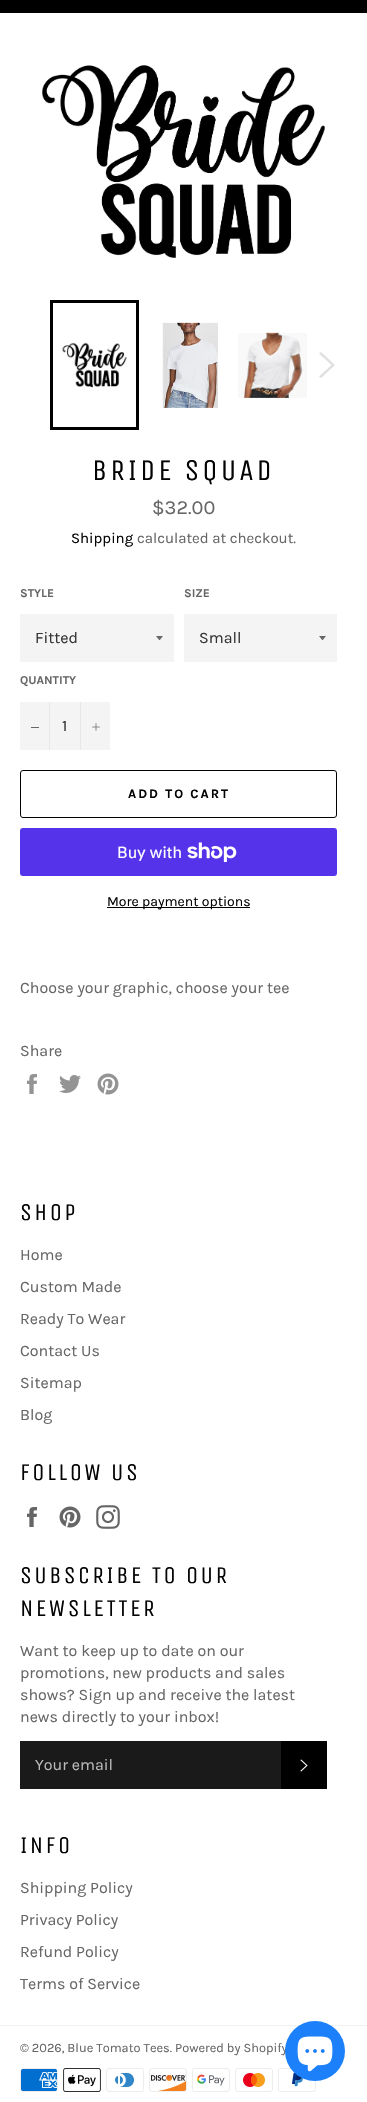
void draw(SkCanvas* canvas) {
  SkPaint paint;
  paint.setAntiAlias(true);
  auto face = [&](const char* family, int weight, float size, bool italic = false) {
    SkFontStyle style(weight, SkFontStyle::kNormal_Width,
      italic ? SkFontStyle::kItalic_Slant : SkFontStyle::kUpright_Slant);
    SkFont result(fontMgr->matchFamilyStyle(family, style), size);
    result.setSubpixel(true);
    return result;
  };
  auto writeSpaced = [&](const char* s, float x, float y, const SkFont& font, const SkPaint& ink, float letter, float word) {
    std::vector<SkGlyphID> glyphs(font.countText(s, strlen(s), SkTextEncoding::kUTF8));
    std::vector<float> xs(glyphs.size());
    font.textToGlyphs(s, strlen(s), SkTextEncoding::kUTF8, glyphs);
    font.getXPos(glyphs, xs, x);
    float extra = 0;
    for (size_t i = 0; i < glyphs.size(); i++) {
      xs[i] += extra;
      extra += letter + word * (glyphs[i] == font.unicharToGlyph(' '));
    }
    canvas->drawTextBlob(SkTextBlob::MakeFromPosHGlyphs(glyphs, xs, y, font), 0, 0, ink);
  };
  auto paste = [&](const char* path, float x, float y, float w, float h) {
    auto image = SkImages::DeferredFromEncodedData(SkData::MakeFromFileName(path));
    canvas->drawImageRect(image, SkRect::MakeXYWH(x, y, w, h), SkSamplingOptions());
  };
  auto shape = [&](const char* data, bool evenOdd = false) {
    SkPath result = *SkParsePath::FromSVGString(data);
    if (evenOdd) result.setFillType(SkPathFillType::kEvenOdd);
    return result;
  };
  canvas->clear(0xffffffff);
  paint.setColor(0xff000000);
  canvas->drawRect(SkRect::MakeXYWH(0, 0, 367, 13), paint);
  paste("img/1.png", 42, 65, 283, 194);
  paste("img/2.png", 62, 342, 65, 46);
  paint.setStroke(true);
  paint.setStrokeWidth(3);
  canvas->drawRect(SkRect::MakeXYWH(51.5f, 301.5f, 86, 127), paint);
  paste("img/3.png", 162, 322, 56, 86);
  paste("img/4.png", 238, 332, 69, 66);
  paint.setStroke(false);
  paint.setColor(0xffe0e0e0);
  canvas->drawPath(shape("M319 353.5L321 352L335 365L321 378L319 376.5L331.5 365Z"), paint);
  paint.setColor(0xfff4f4f4);
  canvas->drawRect(SkRect::MakeXYWH(20, 614, 154, 48), paint);
  paint.setColor(0xff666666);
  canvas->drawPath(shape("M156 636C160.5 641.5 158.5 641.5 163 636Z"), paint);
  paint.setColor(0xfff4f4f4);
  canvas->drawRect(SkRect::MakeXYWH(184, 614, 153, 48), paint);
  paint.setColor(0xff666666);
  canvas->drawPath(shape("M319 636C323.5 641.5 321.5 641.5 326 636Z"), paint);
  {
    const struct { float x, y, w, h; SkColor color; } items[] = {
      {20, 702, 90, 48, 0xfff4f4f4},
      {49, 702, 1, 48, 0xffe7e7e7},
      {31, 727, 8, 1, 0xff666666},
      {80, 702, 1, 48, 0xffe7e7e7},
    };
    for (auto [x, y, w, h, color] : items) {
      paint.setColor(color);
      canvas->drawRect(SkRect::MakeXYWH(x, y, w, h), paint);
    }
  }
  paste("img/5.png", 92, 723, 8, 8);
  paint.setStroke(true);
  paint.setStrokeWidth(1);
  paint.setColor(0xff000000);
  canvas->drawRoundRect(SkRect::MakeXYWH(20.5f, 770.5f, 316, 47), 2.5f, 2.5f, paint);
  paint.setStroke(false);
  paint.setColor(0xff5433eb);
  canvas->drawRoundRect(SkRect::MakeXYWH(20, 828, 317, 48), 3, 3, paint);
  paste("img/6.png", 187, 842, 50, 20);
  paint.setColor(0xff000000);
  canvas->drawRect(SkRect::MakeXYWH(107, 907, 143, 1), paint);
  paste("img/7.png", 27, 1074, 10, 20);
  paste("img/8.png", 59, 1075, 22, 18);
  paste("img/9.png", 97, 1073, 22, 22);
  paste("img/10.png", 27, 1507, 10, 20);
  paste("img/11.png", 59, 1506, 22, 22);
  paste("img/12.png", 96, 1505, 24, 24);
  paint.setColor(0xff1a1a1a);
  canvas->drawRect(SkRect::MakeXYWH(20, 1741, 261, 48), paint);
  paint.setColor(0xff000000);
  canvas->drawRect(SkRect::MakeXYWH(281, 1741, 46, 48), paint);
  paste("img/13.png", 300, 1759, 8, 13);
  paint.setColor(0xfff2f2f2);
  canvas->drawRect(SkRect::MakeXYWH(0, 2025, 367, 1), paint);
  paste("img/14.png", 20, 2068, 38, 24);
  paste("img/15.png", 63, 2068, 38, 24);
  paste("img/16.png", 106, 2068, 38, 24);
  paste("img/17.png", 149, 2068, 38, 24);
  paste("img/18.png", 192, 2068, 38, 24);
  paste("img/19.png", 235, 2068, 38, 24);
  paste("img/20.png", 278, 2068, 38, 24);
  auto f0 = face("Unica One", 400, 30);
  paint.setColor(0xff030303);
  writeSpaced("BRIDE SQUAD", 92, 480, f0, paint, 3, 0);
  auto f1 = face("Karla", 400, 20);
  paint.setColor(0xff666666);
  canvas->drawString("$32.00", 152, 514, f1, paint);
  auto f2 = face("Karla", 400, 15);
  paint.setColor(0xff030303);
  canvas->drawString("Shipping", 71, 543, f2, paint);
  paint.setColor(0xff666666);
  canvas->drawString("calculated at checkout.", 137, 543, f2, paint);
  auto f3 = face("Karla", 700, 12);
  canvas->drawString("STYLE", 20, 597, f3, paint);
  auto f4 = face("Karla", 400, 16);
  paint.setColor(0xff333333);
  canvas->drawString("Fitted", 35, 643, f4, paint);
  paint.setColor(0xff666666);
  canvas->drawString("SIZE", 184, 597, f3, paint);
  paint.setColor(0xff333333);
  canvas->drawString("Small", 199, 643, f4, paint);
  paint.setColor(0xff666666);
  canvas->drawString("QUANTITY", 20, 684, f3, paint);
  paint.setColor(0xff333333);
  canvas->drawString("1", 62, 731, f4, paint);
  auto f5 = face("Karla", 700, 13);
  paint.setColor(0xff030303);
  writeSpaced("ADD TO CART", 128, 798, f5, paint, 2, 0);
  auto f6 = face("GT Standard", 400, 16);
  paint.setColor(0xffffffff);
  canvas->drawString("Buy with", 117, 858, f6, paint);
  auto f7 = face("Karla", 400, 14);
  paint.setColor(0xff030303);
  canvas->drawString("More payment options", 107, 906, f7, paint);
  paint.setColor(0xff666666);
  canvas->drawString("Choose your graphic, choose your tee", 20, 993, f4, paint);
  canvas->drawString("Share", 20, 1056, f4, paint);
  auto f8 = face("Unica One", 400, 24);
  paint.setColor(0xff030303);
  writeSpaced("SHOP", 20, 1220, f8, paint, 2.4f, 0);
  paint.setColor(0xff666666);
  {
    const struct { const char* s; float x, y; } items[] = {
      {"Home", 20, 1260},
      {"Custom Made", 20, 1292},
      {"Ready To Wear", 20, 1324},
      {"Contact Us", 20, 1356},
      {"Sitemap", 20, 1388},
      {"Blog", 20, 1420},
    };
    for (auto [s, x, y] : items) {
      canvas->drawString(s, x, y, f4, paint);
    }
  }
  paint.setColor(0xff030303);
  {
    const struct { const char* s; float x, y; } items[] = {
      {"FOLLOW US", 20, 1480},
      {"SUBSCRIBE TO OUR", 20, 1583},
      {"NEWSLETTER", 20, 1616},
    };
    for (auto [s, x, y] : items) {
      writeSpaced(s, x, y, f8, paint, 2.4f, 0);
    }
  }
  paint.setColor(0xff666666);
  {
    const struct { const char* s; float x, y; } items[] = {
      {"Want to keep up to date on our", 20, 1656},
      {"promotions, new products and sales", 20, 1678},
      {"shows? Sign up and receive the latest", 20, 1700},
      {"news directly to your inbox!", 20, 1722},
    };
    for (auto [s, x, y] : items) {
      canvas->drawString(s, x, y, f4, paint);
    }
  }
  paint.setColor(0xffbababa);
  canvas->drawString("Your email", 35, 1770, f4, paint);
  paint.setColor(0xff030303);
  writeSpaced("INFO", 20, 1853, f8, paint, 2.4f, 0);
  paint.setColor(0xff666666);
  {
    const struct { const char* s; float x, y; } items[] = {
      {"Shipping Policy", 20, 1893},
      {"Privacy Policy", 20, 1925},
      {"Refund Policy", 20, 1957},
      {"Terms of Service", 20, 1989},
    };
    for (auto [s, x, y] : items) {
      canvas->drawString(s, x, y, f4, paint);
    }
  }
  auto f9 = face("Karla", 400, 12.8f);
  canvas->drawString("© 2026, Blue Tomato Tees. Powered by Shopify", 20, 2052, f9, paint);
  paint.setColor(0xff1b80f9);
  canvas->drawCircle(315, 2051, 30, paint);
  paste("img/21.png", 297, 2036, 36, 36);
}
